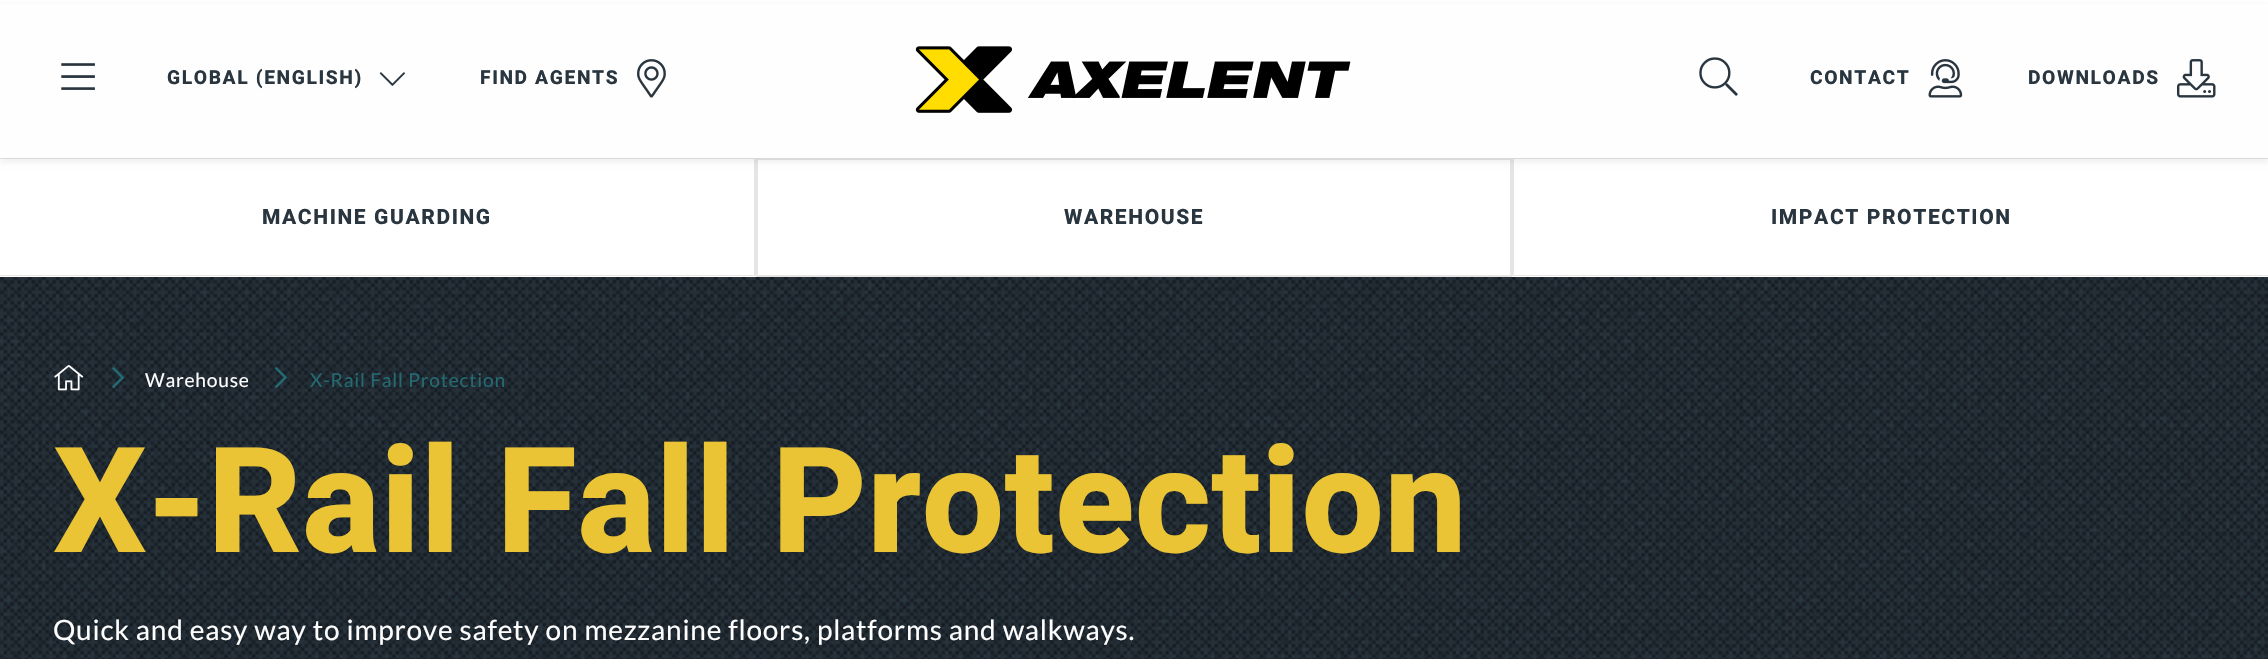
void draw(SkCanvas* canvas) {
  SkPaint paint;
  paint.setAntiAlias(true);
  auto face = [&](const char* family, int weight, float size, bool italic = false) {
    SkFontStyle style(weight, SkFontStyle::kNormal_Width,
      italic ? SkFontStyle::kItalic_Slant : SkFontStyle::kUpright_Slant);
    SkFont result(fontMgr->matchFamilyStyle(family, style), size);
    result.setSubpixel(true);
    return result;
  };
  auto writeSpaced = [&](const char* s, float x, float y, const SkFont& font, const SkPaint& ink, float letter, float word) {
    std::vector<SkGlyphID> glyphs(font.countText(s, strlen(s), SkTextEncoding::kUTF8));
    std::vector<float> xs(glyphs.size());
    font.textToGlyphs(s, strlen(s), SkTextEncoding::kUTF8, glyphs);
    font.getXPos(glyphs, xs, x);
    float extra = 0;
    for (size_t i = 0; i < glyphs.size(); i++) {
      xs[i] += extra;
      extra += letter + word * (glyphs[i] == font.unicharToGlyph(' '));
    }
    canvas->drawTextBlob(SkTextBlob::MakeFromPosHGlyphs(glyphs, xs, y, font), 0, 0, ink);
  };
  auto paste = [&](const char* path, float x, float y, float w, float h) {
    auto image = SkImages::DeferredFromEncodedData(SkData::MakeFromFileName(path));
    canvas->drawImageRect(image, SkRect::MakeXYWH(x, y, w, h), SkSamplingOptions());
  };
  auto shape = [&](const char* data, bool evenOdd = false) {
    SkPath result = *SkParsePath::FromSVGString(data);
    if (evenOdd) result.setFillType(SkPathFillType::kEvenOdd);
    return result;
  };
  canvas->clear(0xffffffff);
  paint.setColor(0xffe5e5e5);
  canvas->drawPath(shape("M0 158H756L754 159H0Z"), paint);
  paint.setColor(0x1a000000);
  canvas->drawPath(shape("M756 158V276L754 275V159Z"), paint);
  paint.setStroke(true);
  paint.setStrokeWidth(2);
  paint.setColor(0xffe5e5e5);
  canvas->drawRect(SkRect::MakeXYWH(757, 159, 754, 117), paint);
  paint.setStroke(false);
  canvas->drawPath(shape("M1512 158H2268V159H1514Z"), paint);
  canvas->drawPath(shape("M2268 276H1512L1514 275H2268Z"), paint);
  paint.setColor(0x1a000000);
  canvas->drawPath(shape("M1512 276V158L1514 159V275Z"), paint);
  paint.setColor(0x0d000000);
  paint.setMaskFilter(SkMaskFilter::MakeBlur(kNormal_SkBlurStyle, 2.5f));
  canvas->drawRect(SkRect::MakeXYWH(0, 5, 2268, 158), paint);
  paint.setMaskFilter(nullptr);
  paint.setColor(0xfffefefe);
  canvas->drawRect(SkRect::MakeXYWH(0, 4, 2268, 154), paint);
  paste("img/1.png", 61, 63, 34, 27);
  paste("img/2.png", 379, 72, 26, 14);
  paste("img/3.png", 637, 59, 29, 39);
  paste("img/4.png", 915, 46, 436, 67);
  paste("img/5.png", 1699, 57, 39, 39);
  paste("img/6.png", 1928, 59, 35, 39);
  paste("img/7.png", 2177, 59, 39, 39);
  paint.setColor(0x1a000000);
  canvas->drawPath(shape("M756 276H0V275H754Z"), paint);
  paste("img/8.png", 0, 277, 2268, 382);
  paste("img/9.png", 54, 365, 30, 26);
  paste("img/10.png", 112, 367, 13, 22);
  paste("img/11.png", 274, 367, 13, 22);
  auto f0 = face("Heebo", 800, 19.25f);
  paint.setColor(0xff29353f);
  {
    const struct { const char* s; float x, y; } items[] = {
      {"GLOBAL (ENGLISH)", 167, 84},
      {"FIND AGENTS", 480, 84},
      {"CONTACT", 1810, 84},
      {"DOWNLOADS", 2028, 84},
    };
    for (auto [s, x, y] : items) {
      writeSpaced(s, x, y, f0, paint, 1.6f, 0);
    }
  }
  auto f1 = face("Heebo", 800, 21);
  {
    const struct { const char* s; float x, y; } items[] = {
      {"MACHINE GUARDING", 262, 224},
      {"WAREHOUSE", 1064, 224},
      {"IMPACT PROTECTION", 1771, 224},
    };
    for (auto [s, x, y] : items) {
      writeSpaced(s, x, y, f1, paint, 1.6f, 0);
    }
  }
  auto f2 = face("Lato", 400, 19.25f);
  paint.setColor(0xfffefefe);
  writeSpaced("Warehouse", 145, 387, f2, paint, 0.77f, 0);
  paint.setColor(0xff246a73);
  writeSpaced("X-Rail Fall Protection", 310, 387, f2, paint, 0.77f, 0);
  auto f3 = face("Heebo", 800, 147);
  paint.setColor(0xffeac435);
  canvas->drawString("X-Rail Fall Protection", 53, 552, f3, paint);
  auto f4 = face("Lato", 400, 28);
  paint.setColor(0xfffefefe);
  writeSpaced("Quick and easy way to improve safety on mezzanine floors, platforms and walkways.", 53, 640, f4, paint, 0.77f, 0);
}
